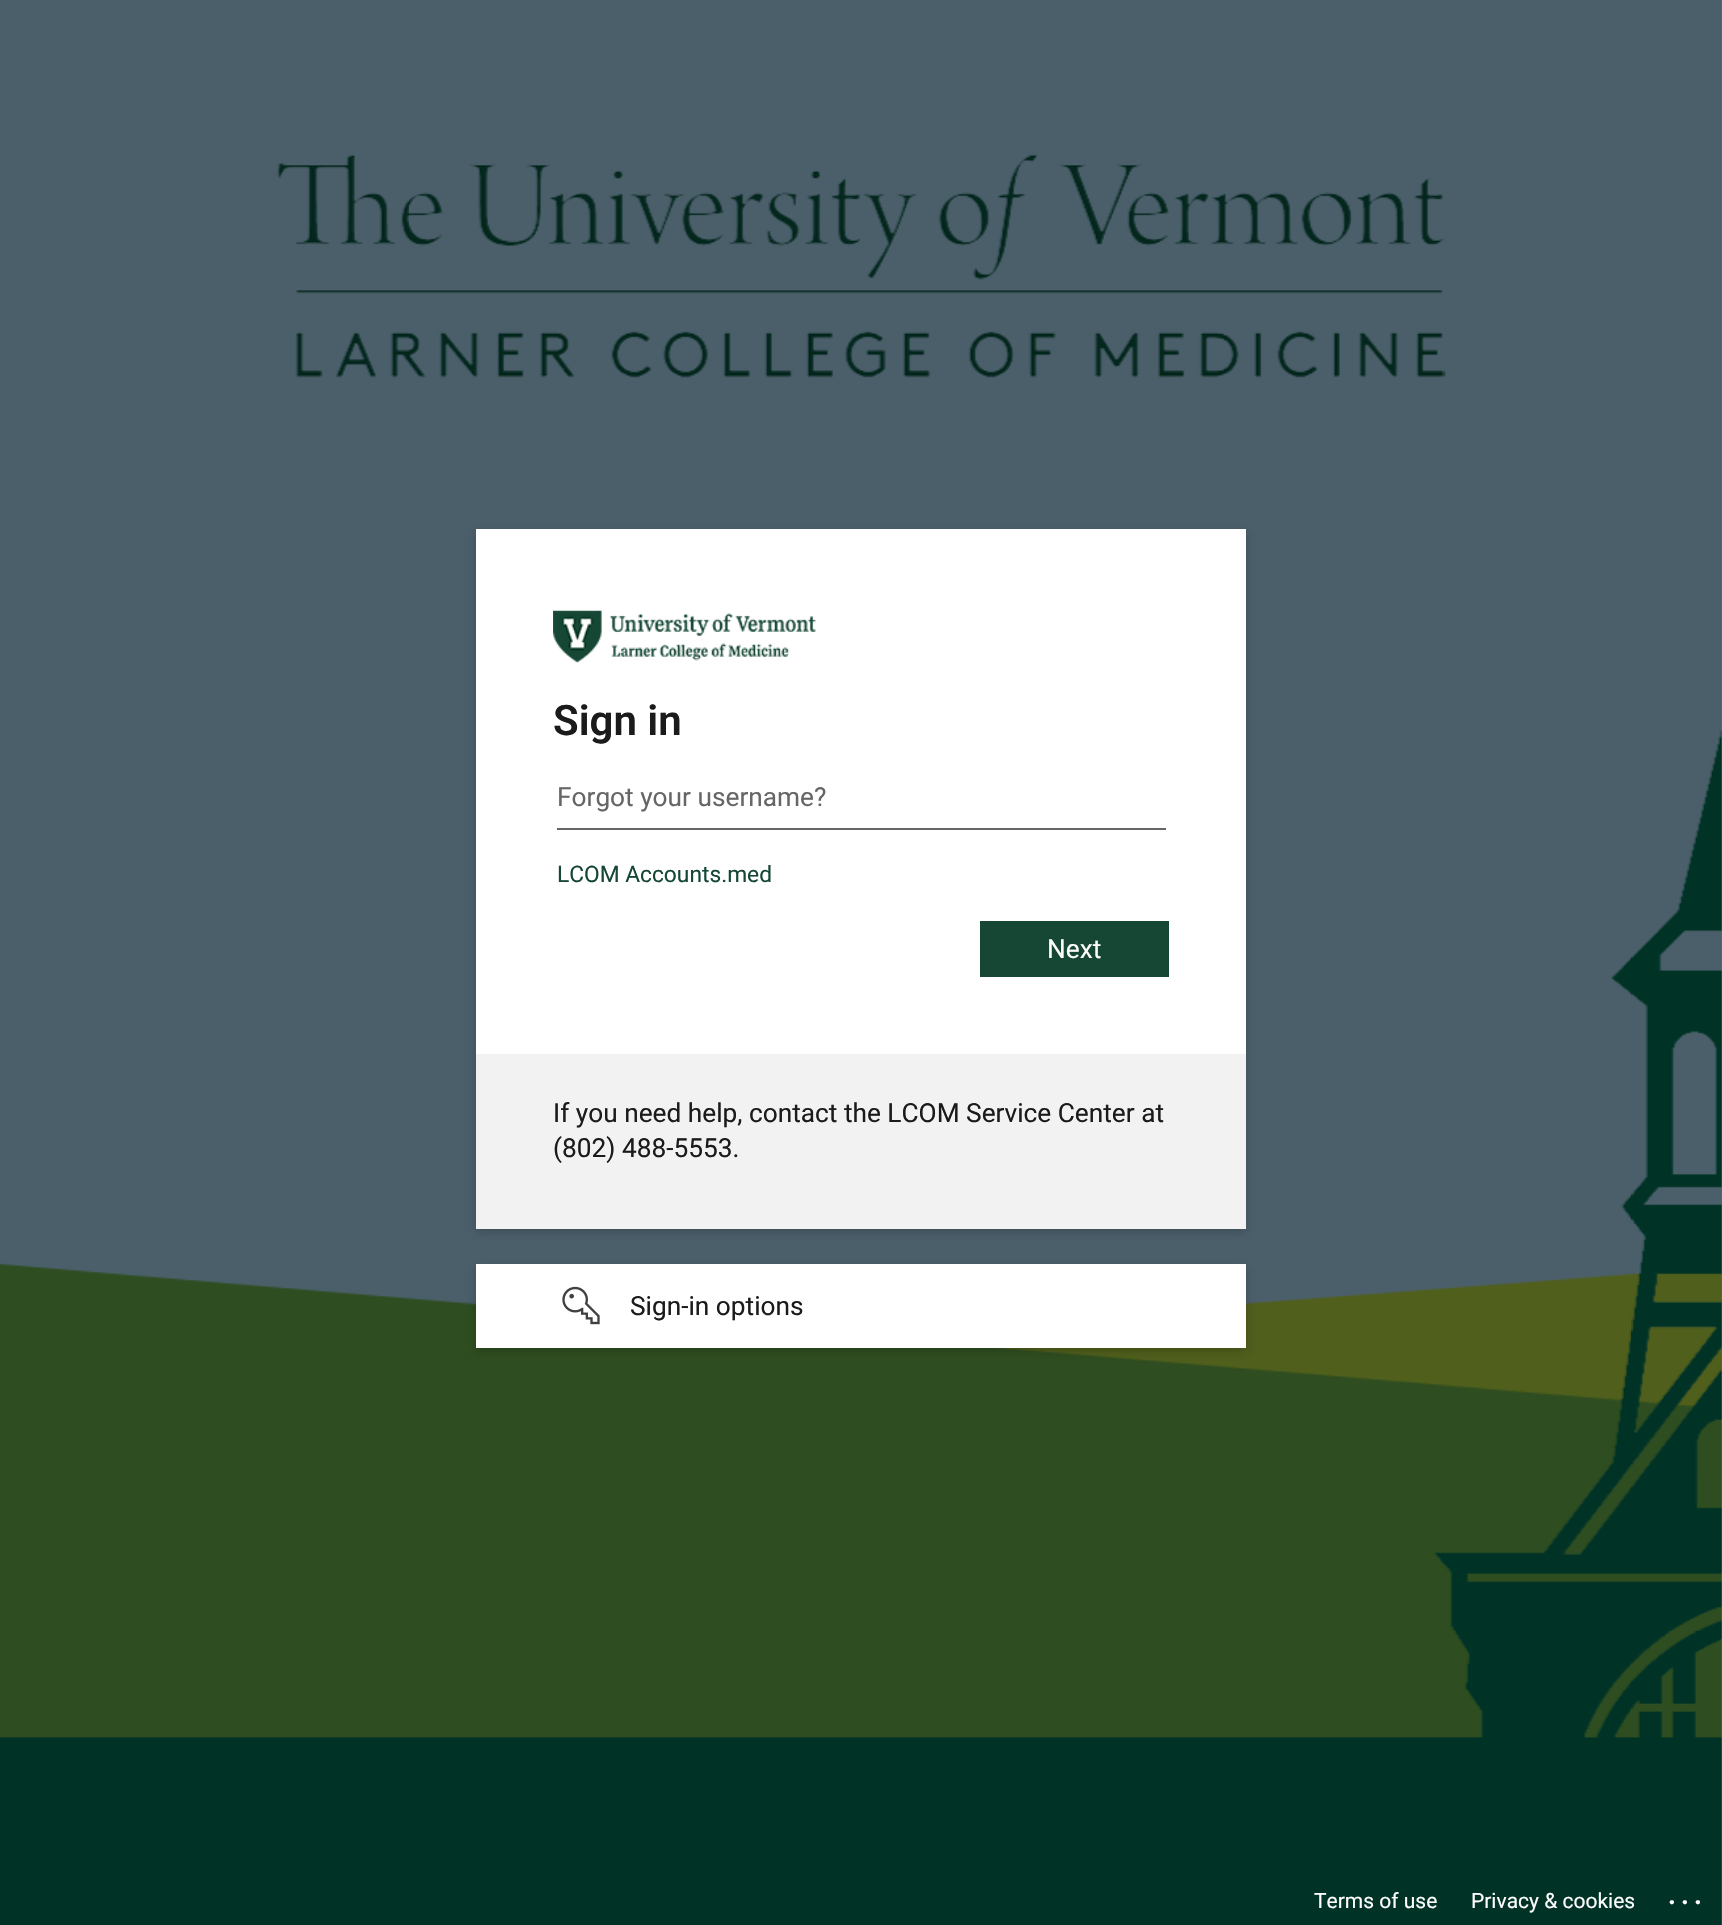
void draw(SkCanvas* canvas) {
  SkPaint paint;
  paint.setAntiAlias(true);
  auto face = [&](const char* family, int weight, float size, bool italic = false) {
    SkFontStyle style(weight, SkFontStyle::kNormal_Width,
      italic ? SkFontStyle::kItalic_Slant : SkFontStyle::kUpright_Slant);
    SkFont result(fontMgr->matchFamilyStyle(family, style), size);
    result.setSubpixel(true);
    return result;
  };
  auto writeSpaced = [&](const char* s, float x, float y, const SkFont& font, const SkPaint& ink, float letter, float word) {
    std::vector<SkGlyphID> glyphs(font.countText(s, strlen(s), SkTextEncoding::kUTF8));
    std::vector<float> xs(glyphs.size());
    font.textToGlyphs(s, strlen(s), SkTextEncoding::kUTF8, glyphs);
    font.getXPos(glyphs, xs, x);
    float extra = 0;
    for (size_t i = 0; i < glyphs.size(); i++) {
      xs[i] += extra;
      extra += letter + word * (glyphs[i] == font.unicharToGlyph(' '));
    }
    canvas->drawTextBlob(SkTextBlob::MakeFromPosHGlyphs(glyphs, xs, y, font), 0, 0, ink);
  };
  auto paste = [&](const char* path, float x, float y, float w, float h) {
    auto image = SkImages::DeferredFromEncodedData(SkData::MakeFromFileName(path));
    canvas->drawImageRect(image, SkRect::MakeXYWH(x, y, w, h), SkSamplingOptions());
  };
  canvas->clear(0xff6d6d6d);
  paste("img/1.png", 0, 0, 1722, 1925);
  paint.setColor(0x33000000);
  paint.setMaskFilter(SkMaskFilter::MakeBlur(kNormal_SkBlurStyle, 5));
  canvas->drawRect(SkRect::MakeXYWH(476, 532, 770, 700), paint);
  paint.setMaskFilter(nullptr);
  paint.setColor(0xffffffff);
  canvas->drawRect(SkRect::MakeXYWH(476, 529, 770, 525), paint);
  paste("img/2.png", 553, 610, 263, 53);
  {
    const struct { float x, y, w, h; SkColor color; } items[] = {
      {557, 828, 609, 2, 0xff666666},
      {980, 921, 189, 56, 0xff154734},
      {476, 1054, 770, 175, 0xfff2f2f2},
    };
    for (auto [x, y, w, h, color] : items) {
      paint.setColor(color);
      canvas->drawRect(SkRect::MakeXYWH(x, y, w, h), paint);
    }
  }
  paint.setColor(0x33000000);
  paint.setMaskFilter(SkMaskFilter::MakeBlur(kNormal_SkBlurStyle, 5));
  canvas->drawRect(SkRect::MakeXYWH(476, 1267, 770, 84), paint);
  paint.setMaskFilter(nullptr);
  paint.setColor(0xffffffff);
  canvas->drawRect(SkRect::MakeXYWH(476, 1264, 770, 84), paint);
  paste("img/3.png", 562, 1286, 38, 39);
  auto f0 = face("Roboto", 600, 42);
  paint.setColor(0xff1b1b1b);
  canvas->drawString("Sign in", 553, 735, f0, paint);
  auto f1 = face("Roboto", 400, 26.25f);
  paint.setColor(0xff666666);
  canvas->drawString("Forgot your username?", 557, 806, f1, paint);
  auto f2 = face("Roboto", 400, 22.75f);
  paint.setColor(0xff154734);
  canvas->drawString("LCOM Accounts.med", 557, 882, f2, paint);
  paint.setColor(0xffffffff);
  canvas->drawString("Next", 1047, 958, f1, paint);
  paint.setColor(0xff1b1b1b);
  {
    const struct { const char* s; float x, y; } items[] = {
      {"If you need help, contact the LCOM Service Center at", 553, 1122},
      {"(802) 488-5553.", 553, 1157},
      {"Sign-in options", 630, 1315},
    };
    for (auto [s, x, y] : items) {
      canvas->drawString(s, x, y, f1, paint);
    }
  }
  auto f3 = face("Roboto", 400, 21);
  paint.setColor(0xffffffff);
  canvas->drawString("Terms of use", 1314, 1908, f3, paint);
  canvas->drawString("Privacy & cookies", 1471, 1908, f3, paint);
  auto f4 = face("Roboto", 600, 28);
  writeSpaced("...", 1668, 1904, f4, paint, 5, 0);
}
